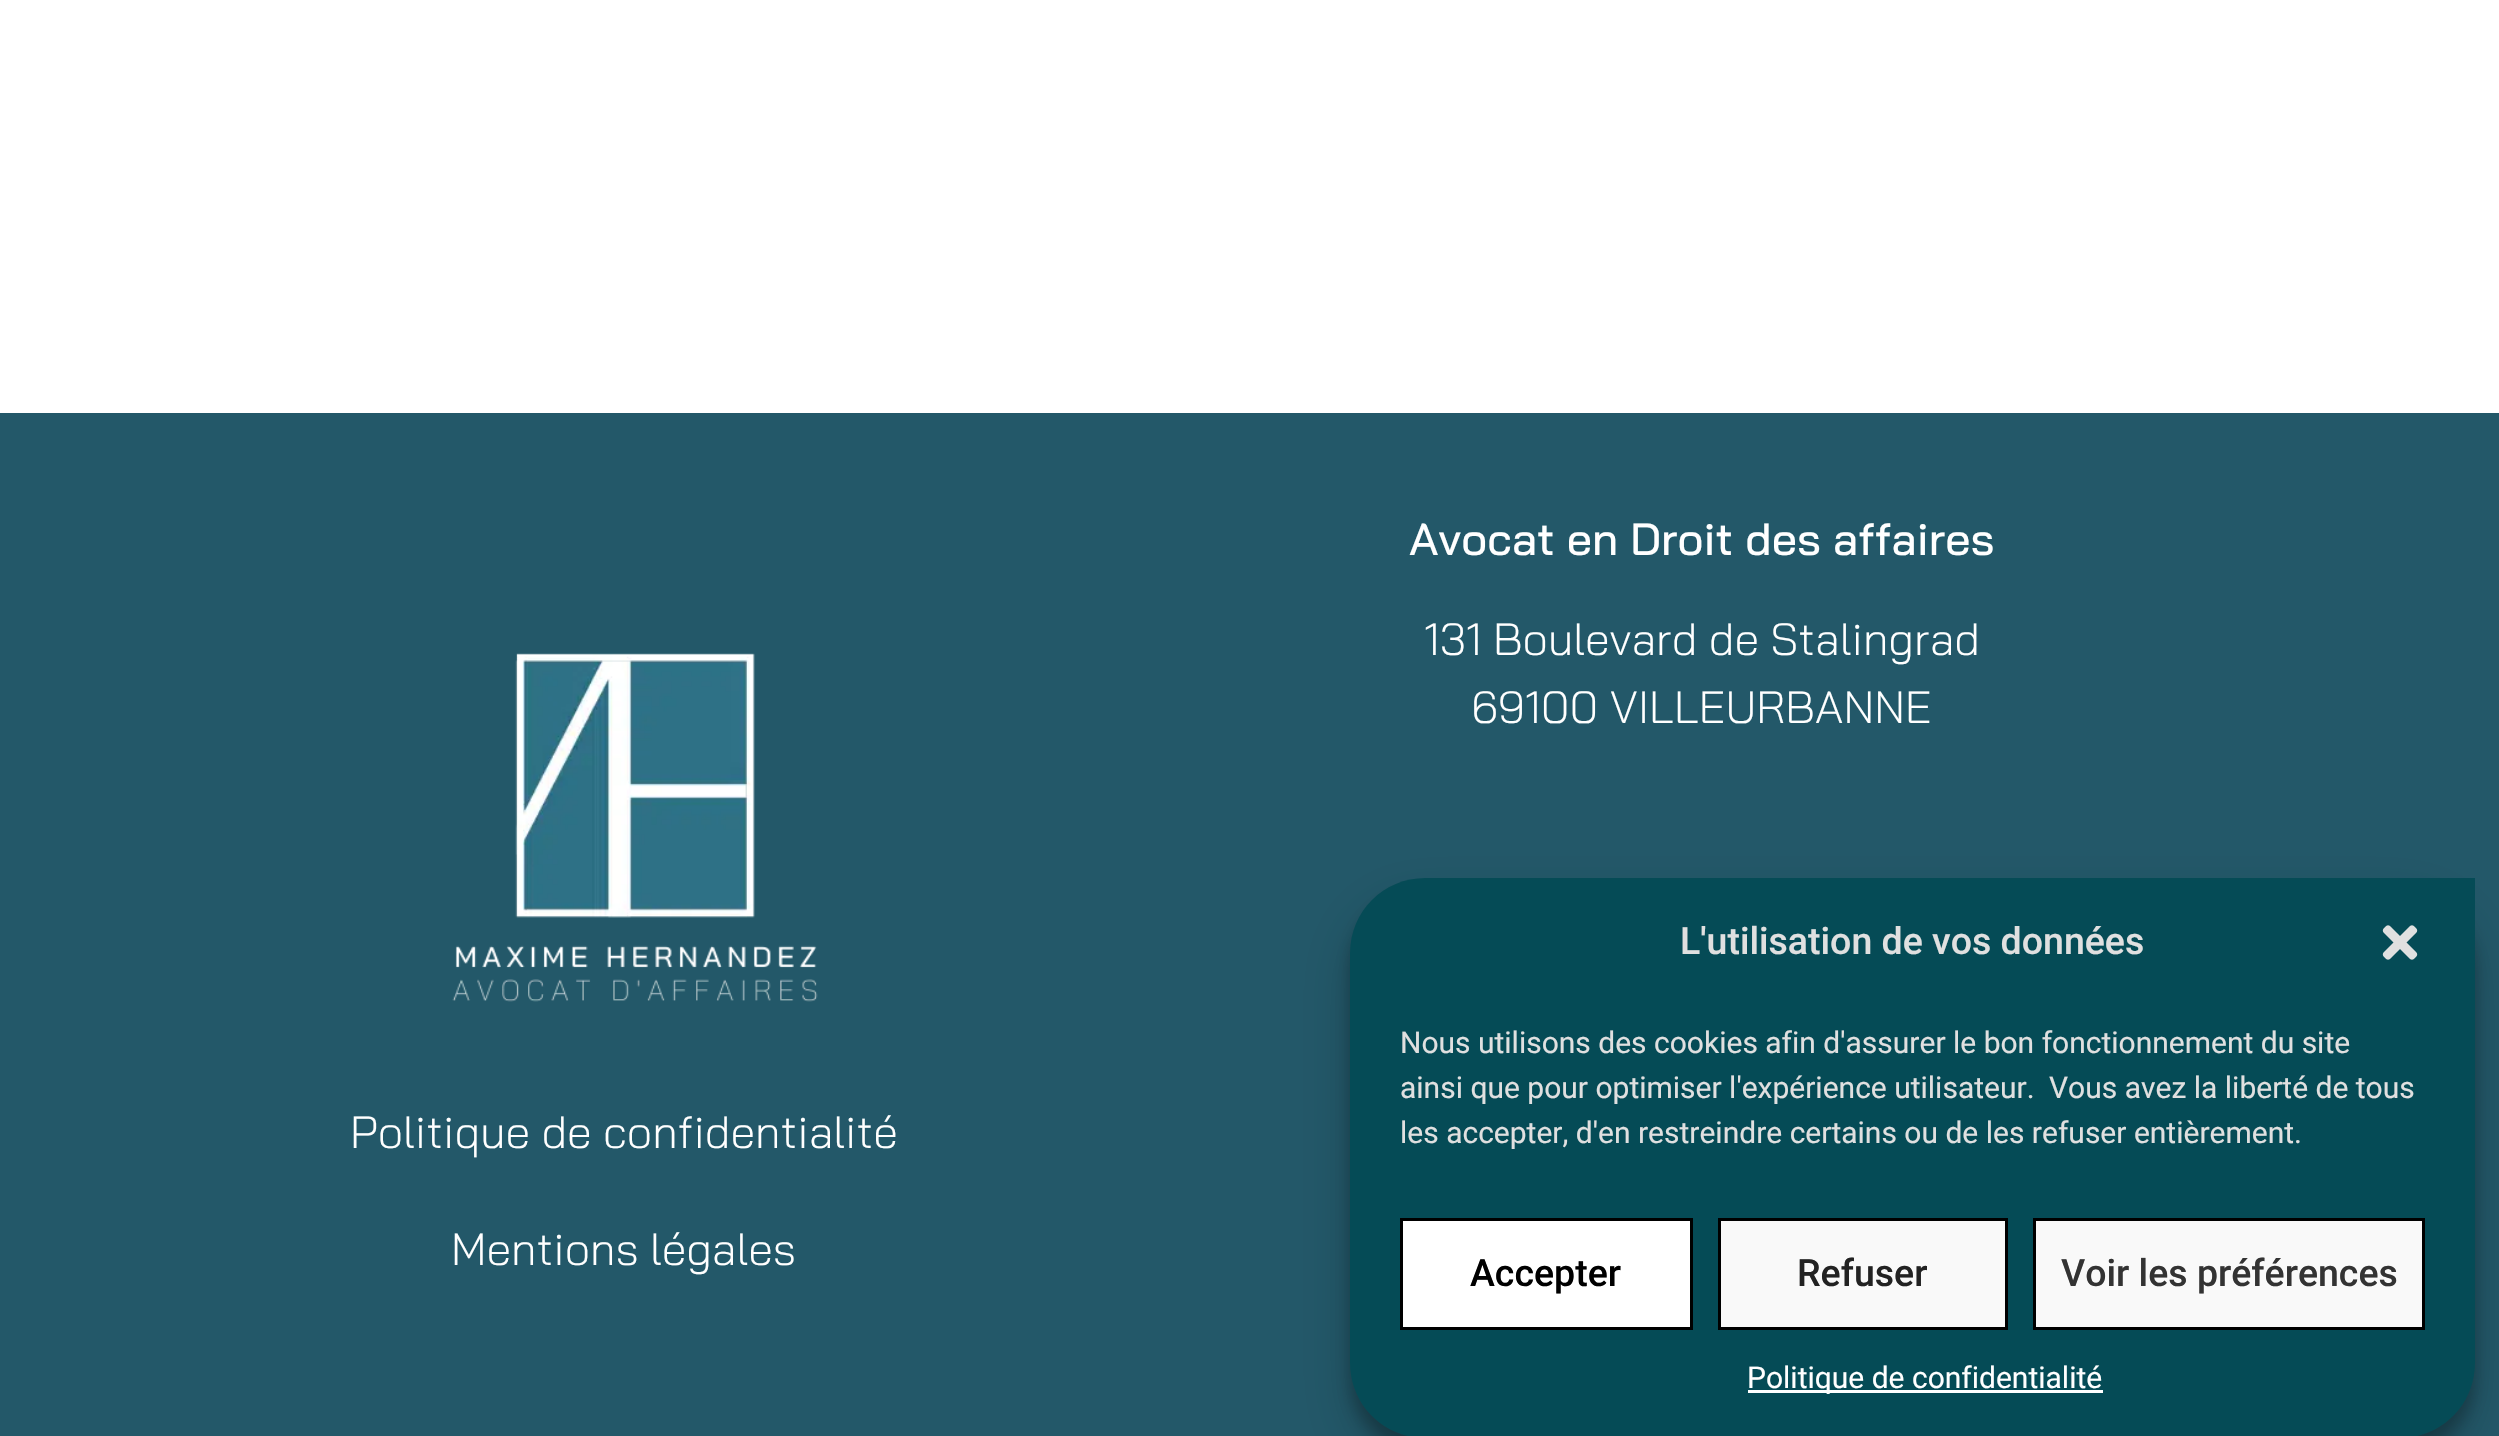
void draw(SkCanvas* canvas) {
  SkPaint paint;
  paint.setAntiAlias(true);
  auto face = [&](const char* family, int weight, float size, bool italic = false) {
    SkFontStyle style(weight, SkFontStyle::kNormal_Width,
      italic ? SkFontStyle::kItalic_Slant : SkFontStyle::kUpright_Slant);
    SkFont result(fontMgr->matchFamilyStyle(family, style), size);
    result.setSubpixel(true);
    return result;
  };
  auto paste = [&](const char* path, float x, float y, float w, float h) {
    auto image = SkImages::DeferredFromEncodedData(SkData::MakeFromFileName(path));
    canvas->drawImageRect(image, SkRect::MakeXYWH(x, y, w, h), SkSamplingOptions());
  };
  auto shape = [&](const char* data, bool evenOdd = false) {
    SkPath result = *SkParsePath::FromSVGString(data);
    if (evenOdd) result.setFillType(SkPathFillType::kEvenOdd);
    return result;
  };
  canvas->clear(0xffffffff);
  paint.setColor(0xff235869);
  canvas->drawRect(SkRect::MakeXYWH(0, 413, 2499, 1023), paint);
  paste("img/1.png", 452, 653, 366, 349);
  paint.setColor(0x3b000000);
  paint.setMaskFilter(SkMaskFilter::MakeBlur(kNormal_SkBlurStyle, 7.5f));
  canvas->drawRoundRect(SkRect::MakeXYWH(1350, 893, 1125, 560), 75, 75, paint);
  paint.setMaskFilter(nullptr);
  paint.setColor(0x30000000);
  paint.setMaskFilter(SkMaskFilter::MakeBlur(kNormal_SkBlurStyle, 25));
  canvas->drawRoundRect(SkRect::MakeXYWH(1350, 903, 1125, 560), 75, 75, paint);
  paint.setMaskFilter(nullptr);
  paint.setColor(0xff054b56);
  canvas->drawPath(shape("M1425 878H2475V1363C2475 1404.5 2441.5 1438 2400 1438H1425C1383.5 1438 1350 1404.5 1350 1363V953C1350 911.5 1383.5 878 1425 878Z"), paint);
  paste("img/2.png", 2382, 925, 36, 35);
  paint.setColor(0xffffffff);
  canvas->drawRect(SkRect::MakeXYWH(1401.5f, 1219.5f, 290, 109), paint);
  paint.setStroke(true);
  paint.setStrokeWidth(3);
  paint.setColor(0xff000000);
  canvas->drawRect(SkRect::MakeXYWH(1401.5f, 1219.5f, 290, 109), paint);
  paint.setStroke(false);
  paint.setColor(0xfff9f9f9);
  canvas->drawRect(SkRect::MakeXYWH(1719.5f, 1219.5f, 287, 109), paint);
  paint.setStroke(true);
  paint.setColor(0xff000000);
  canvas->drawRect(SkRect::MakeXYWH(1719.5f, 1219.5f, 287, 109), paint);
  paint.setStroke(false);
  paint.setColor(0xfff9f9f9);
  canvas->drawRect(SkRect::MakeXYWH(2034.5f, 1219.5f, 389, 109), paint);
  paint.setStroke(true);
  paint.setColor(0xff000000);
  canvas->drawRect(SkRect::MakeXYWH(2034.5f, 1219.5f, 389, 109), paint);
  paint.setStroke(false);
  paint.setColor(0xffffffff);
  canvas->drawRect(SkRect::MakeXYWH(1748, 1390, 355, 3), paint);
  auto f0 = face("Bai Jamjuree", 500, 45);
  canvas->drawString("Avocat en Droit des affaires", 1409, 555, f0, paint);
  auto f1 = face("Bai Jamjuree", 300, 45);
  {
    const struct { const char* s; float x, y; } items[] = {
      {"131 Boulevard de Stalingrad", 1424, 655},
      {"69100 VILLEURBANNE", 1471, 723},
      {"Politique de confidentialité", 350, 1148},
      {"Mentions légales", 451, 1265},
    };
    for (auto [s, x, y] : items) {
      canvas->drawString(s, x, y, f1, paint);
    }
  }
  auto f2 = face("Roboto", 500, 37.5f);
  paint.setColor(0xffe0e0e0);
  canvas->drawString("L'utilisation de vos données", 1680, 954, f2, paint);
  auto f3 = face("Roboto", 400, 30);
  {
    const struct { const char* s; float x, y; } items[] = {
      {"Nous utilisons des cookies afin d'assurer le bon fonctionnement du site", 1400, 1053},
      {"ainsi que pour optimiser l'expérience utilisateur.", 1400, 1098},
      {"Vous avez la liberté de tous", 2049, 1098},
      {"les accepter, d'en restreindre certains ou de les refuser entièrement.", 1400, 1143},
    };
    for (auto [s, x, y] : items) {
      canvas->drawString(s, x, y, f3, paint);
    }
  }
  paint.setColor(0xff000000);
  canvas->drawString("Accepter", 1470, 1286, f2, paint);
  paint.setColor(0xff222222);
  canvas->drawString("Refuser", 1797, 1286, f2, paint);
  paint.setColor(0xff333333);
  canvas->drawString("Voir les préférences", 2061, 1286, f2, paint);
  paint.setColor(0xffffffff);
  canvas->drawString("Politique de confidentialité", 1747, 1388, f3, paint);
}
